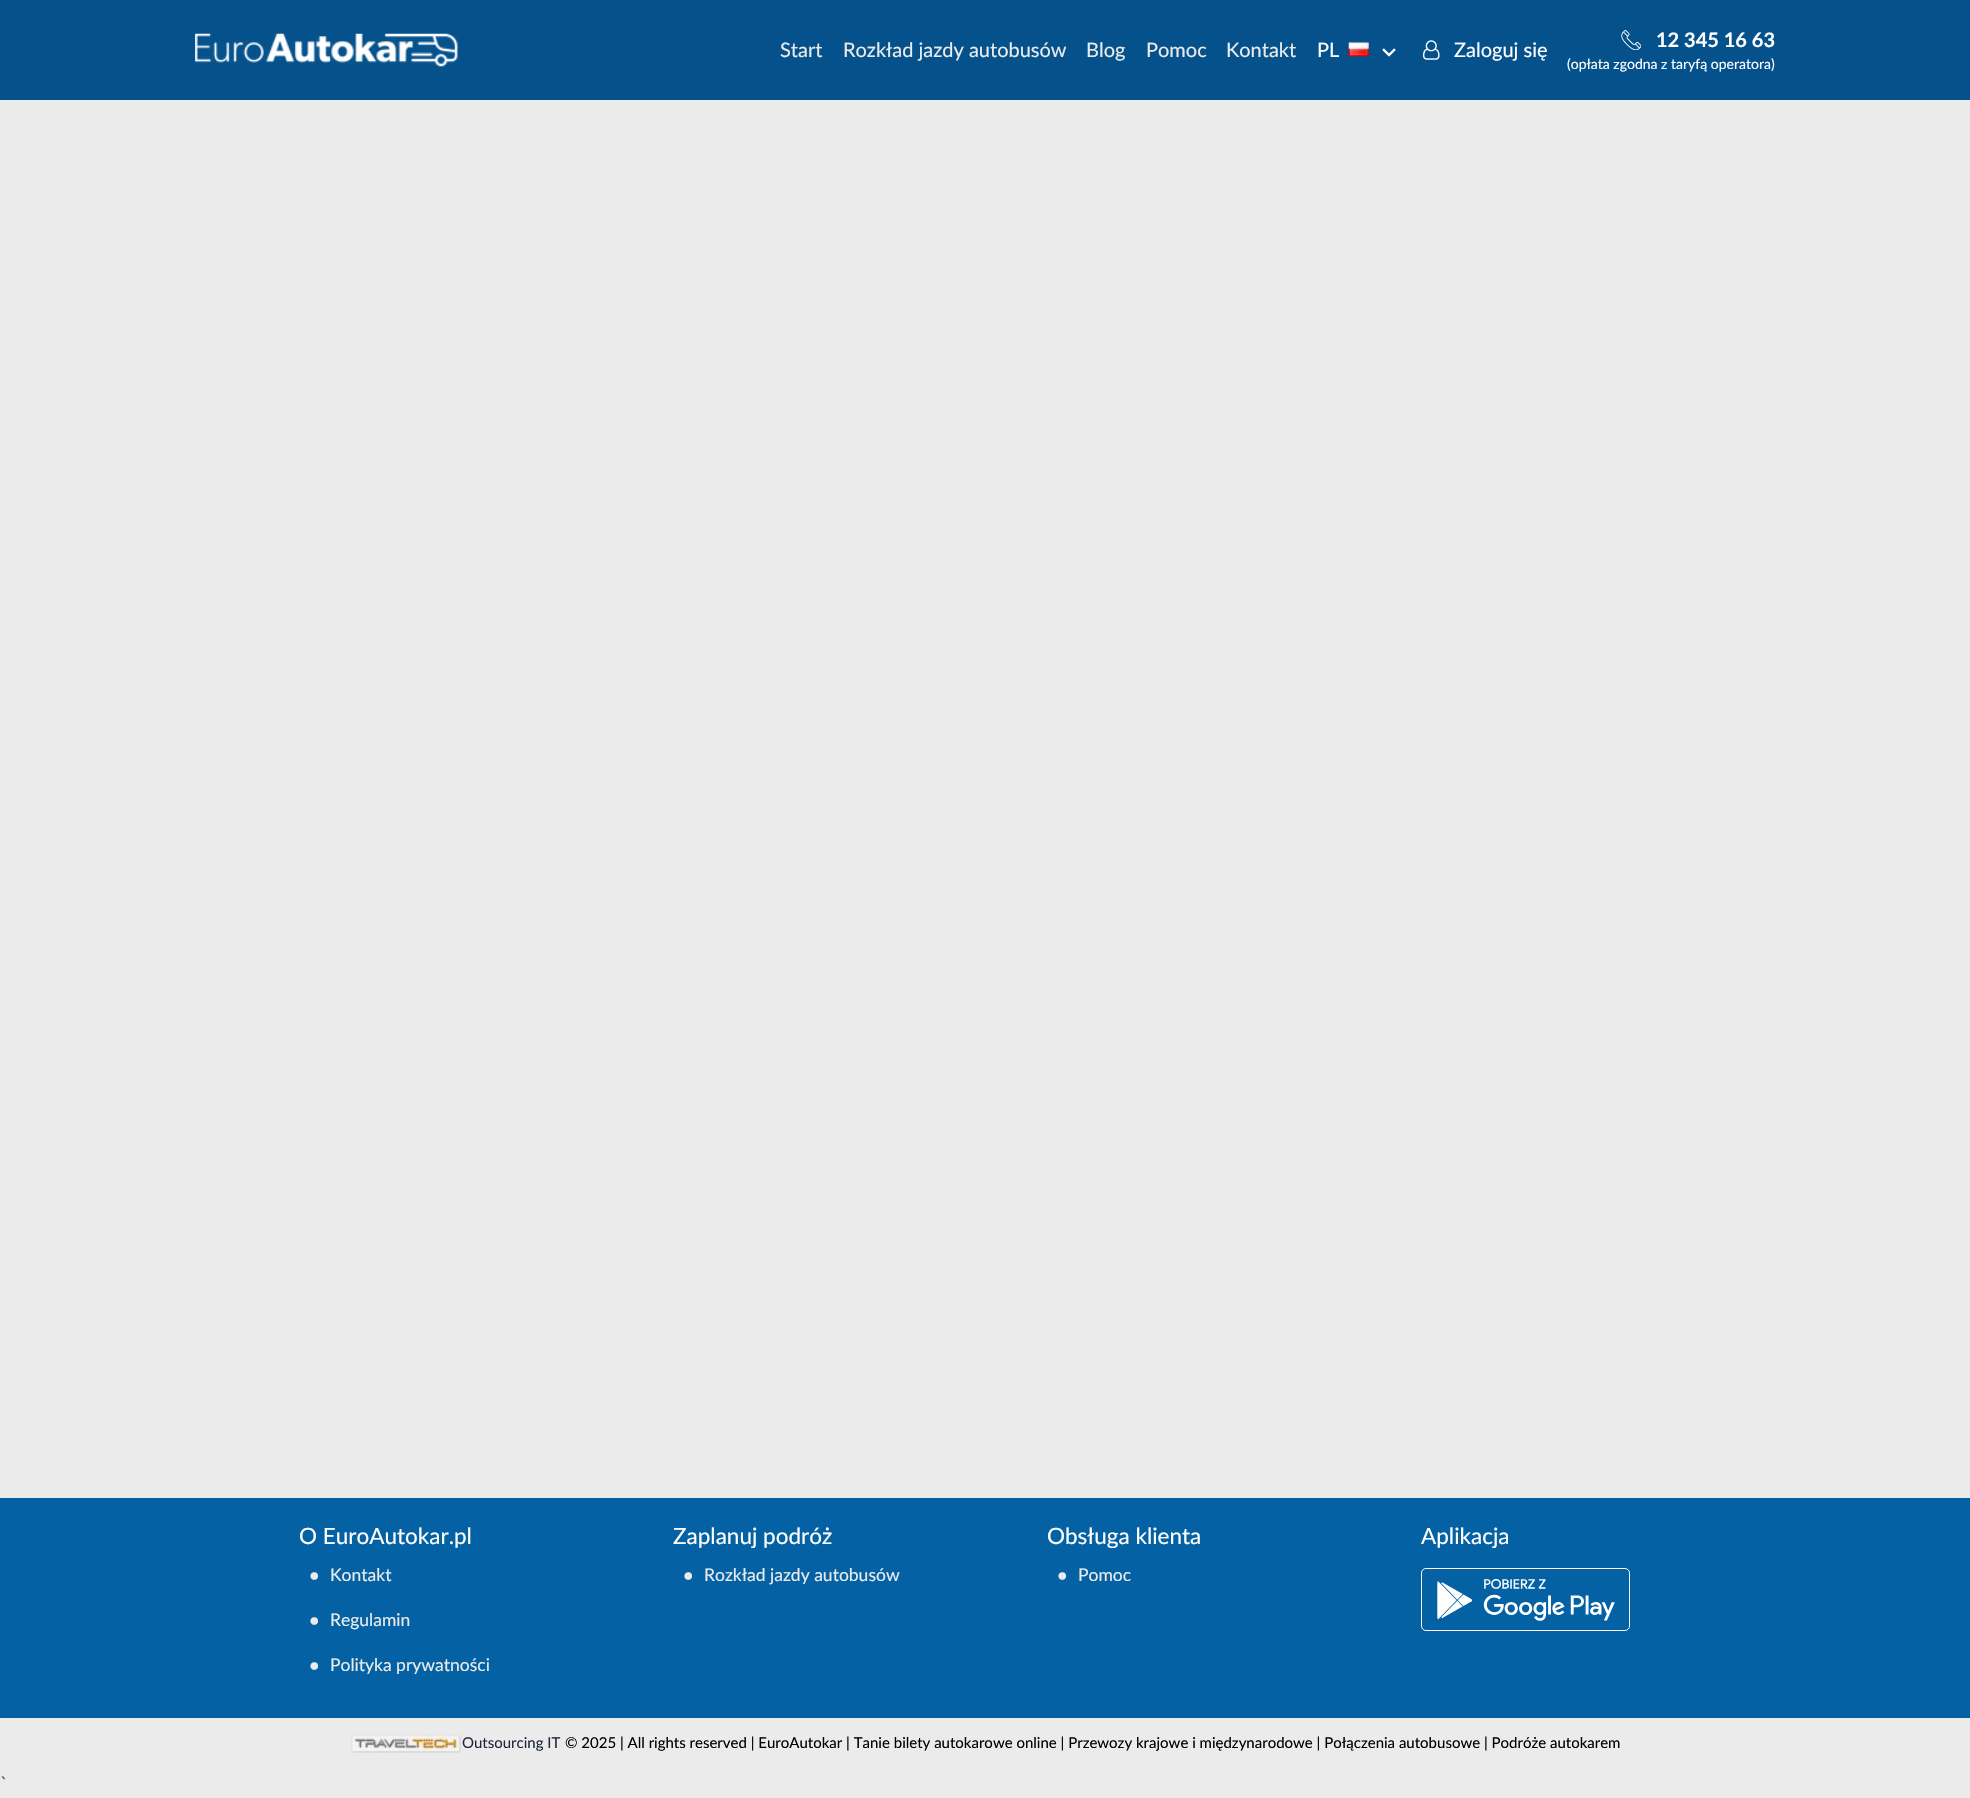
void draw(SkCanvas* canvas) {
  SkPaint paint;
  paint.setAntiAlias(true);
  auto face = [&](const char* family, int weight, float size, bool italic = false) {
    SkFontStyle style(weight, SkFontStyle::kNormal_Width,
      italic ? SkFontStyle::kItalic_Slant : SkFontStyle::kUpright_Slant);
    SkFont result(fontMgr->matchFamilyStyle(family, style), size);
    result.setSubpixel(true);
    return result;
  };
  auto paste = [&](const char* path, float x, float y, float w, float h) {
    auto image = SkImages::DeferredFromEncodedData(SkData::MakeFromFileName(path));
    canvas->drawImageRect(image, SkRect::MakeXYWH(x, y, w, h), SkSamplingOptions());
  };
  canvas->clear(0xffebebeb);
  paint.setColor(0xff04518c);
  canvas->drawRect(SkRect::MakeXYWH(0, 0, 1970, 100), paint);
  paste("img/1.png", 195, 33, 263, 34);
  paste("img/2.png", 1348, 42, 21, 15);
  paste("img/3.png", 1382, 48, 14, 9);
  paste("img/4.png", 1422, 40, 18, 20);
  paste("img/5.png", 1621, 30, 20, 20);
  paint.setColor(0xff0461a4);
  canvas->drawRect(SkRect::MakeXYWH(0, 1498, 1970, 220), paint);
  paint.setStroke(true);
  paint.setStrokeWidth(1);
  paint.setColor(0xffffffff);
  canvas->drawRoundRect(SkRect::MakeXYWH(1421.5f, 1568.5f, 208, 62), 4.5f, 4.5f, paint);
  paste("img/6.png", 1437, 1579, 178, 42);
  paste("img/7.png", 351, 1735, 110, 18);
  auto f0 = face("Lato", 400, 20);
  paint.setStroke(false);
  paint.setColor(0xffebebeb);
  {
    const struct { const char* s; float x, y; } items[] = {
      {"Start", 780, 57},
      {"Rozkład jazdy autobusów", 843, 57},
      {"Blog", 1086, 57},
      {"Pomoc", 1146, 57},
      {"Kontakt", 1226, 57},
    };
    for (auto [s, x, y] : items) {
      canvas->drawString(s, x, y, f0, paint);
    }
  }
  paint.setColor(0xffffffff);
  canvas->drawString("PL", 1317, 57, f0, paint);
  canvas->drawString("Zaloguj się", 1454, 57, f0, paint);
  auto f1 = face("Lato", 700, 20);
  canvas->drawString("12 345 16 63", 1656, 47, f1, paint);
  auto f2 = face("Lato", 400, 14);
  canvas->drawString("(opłata zgodna z taryfą operatora)", 1567, 69, f2, paint);
  auto f3 = face("Lato", 400, 22.5f);
  canvas->drawString("O EuroAutokar.pl", 299, 1544, f3, paint);
  auto f4 = face("Liberation Sans", 400, 17.5f, true);
  paint.setColor(0xffebebeb);
  canvas->drawString("●", 309, 1581, f4, paint);
  auto f5 = face("Lato", 400, 17.5f);
  canvas->drawString("Kontakt", 330, 1581, f5, paint);
  canvas->drawString("●", 309, 1626, f4, paint);
  canvas->drawString("Regulamin", 330, 1626, f5, paint);
  canvas->drawString("●", 309, 1671, f4, paint);
  canvas->drawString("Polityka prywatności", 330, 1671, f5, paint);
  paint.setColor(0xffffffff);
  canvas->drawString("Zaplanuj podróż", 673, 1544, f3, paint);
  paint.setColor(0xffebebeb);
  canvas->drawString("●", 683, 1581, f4, paint);
  canvas->drawString("Rozkład jazdy autobusów", 704, 1581, f5, paint);
  paint.setColor(0xffffffff);
  canvas->drawString("Obsługa klienta", 1047, 1544, f3, paint);
  paint.setColor(0xffebebeb);
  canvas->drawString("●", 1057, 1581, f4, paint);
  canvas->drawString("Pomoc", 1078, 1581, f5, paint);
  paint.setColor(0xffffffff);
  canvas->drawString("Aplikacja", 1421, 1544, f3, paint);
  auto f6 = face("Lato", 400, 15);
  paint.setColor(0xff1f2937);
  canvas->drawString("Outsourcing IT", 462, 1748, f6, paint);
  paint.setColor(0xff000000);
  canvas->drawString("© 2025 | All rights reserved | EuroAutokar | Tanie bilety autokarowe online | Przewozy krajowe i międzynarodowe | Połączenia autobusowe | Podróże autokarem", 565, 1748, f6, paint);
  paint.setColor(0xff626262);
  canvas->drawString("`", 0, 1791, f0, paint);
}
